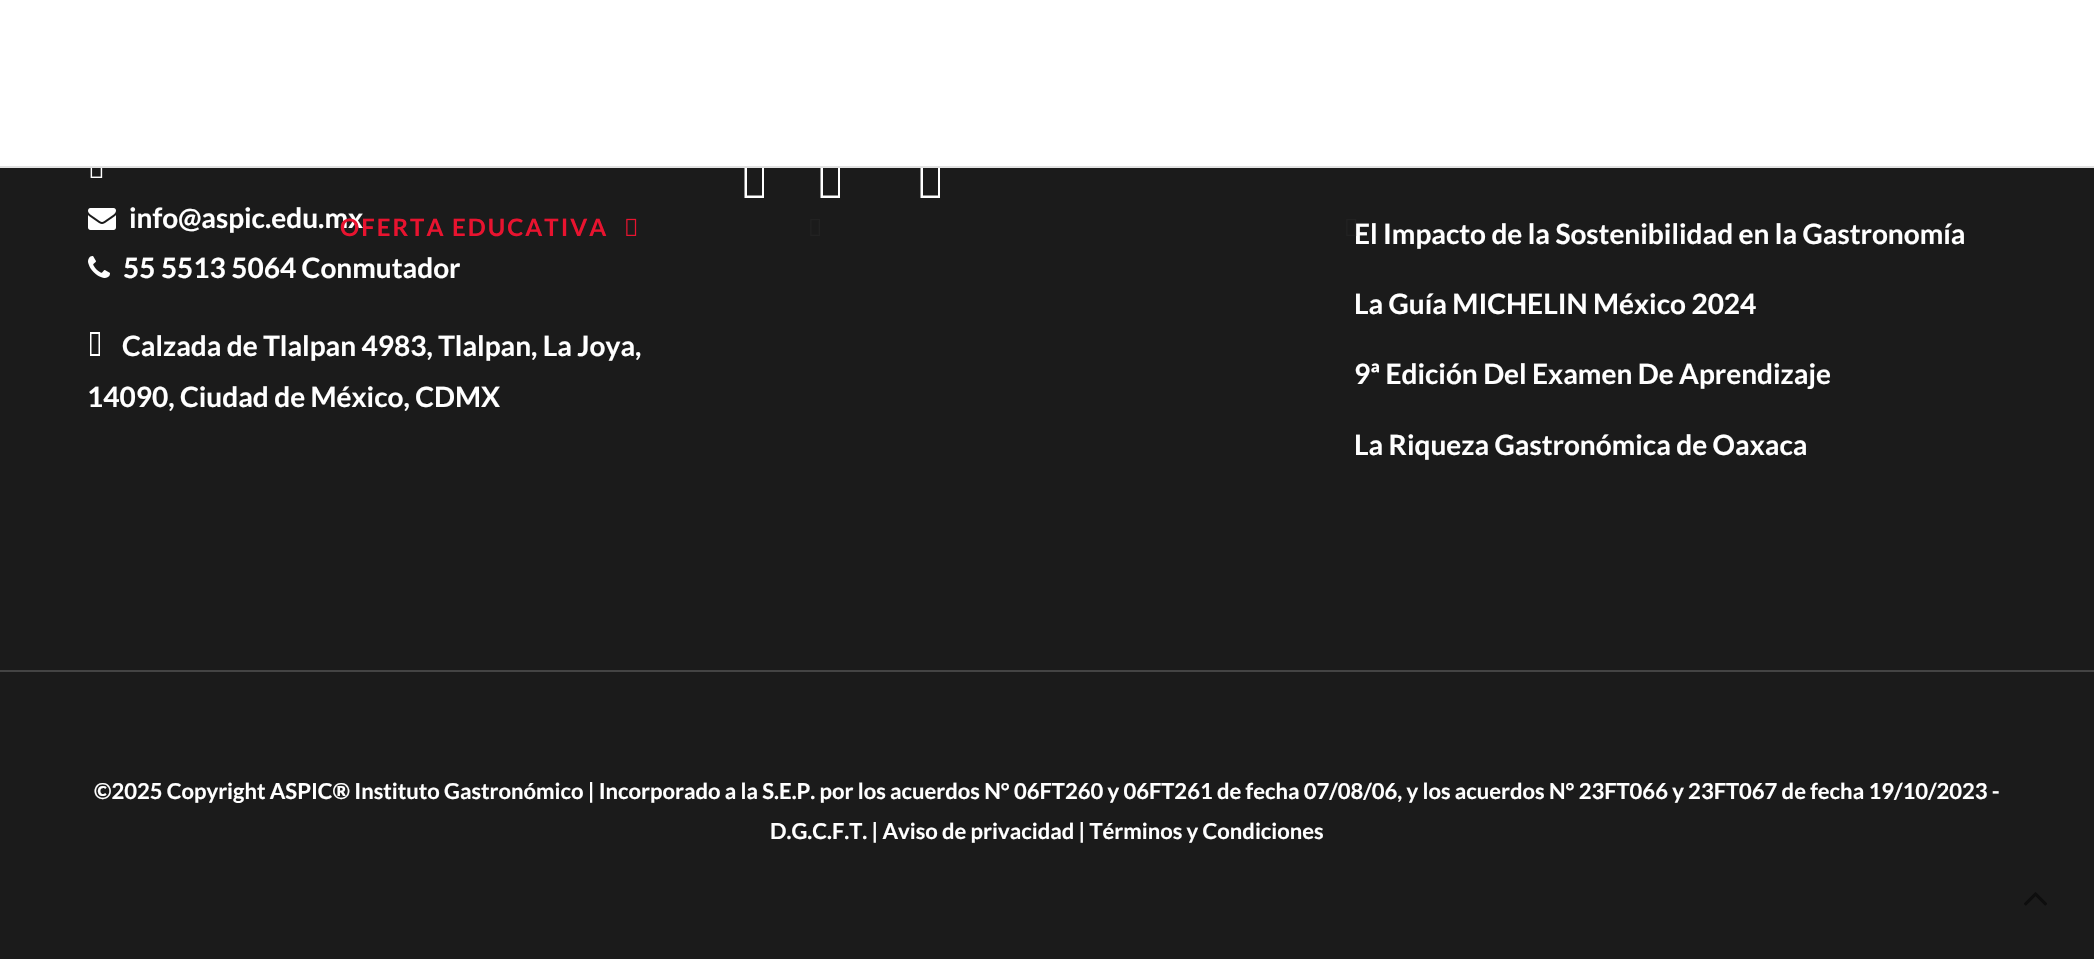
void draw(SkCanvas* canvas) {
  SkPaint paint;
  paint.setAntiAlias(true);
  auto face = [&](const char* family, int weight, float size, bool italic = false) {
    SkFontStyle style(weight, SkFontStyle::kNormal_Width,
      italic ? SkFontStyle::kItalic_Slant : SkFontStyle::kUpright_Slant);
    SkFont result(fontMgr->matchFamilyStyle(family, style), size);
    result.setSubpixel(true);
    return result;
  };
  auto writeSpaced = [&](const char* s, float x, float y, const SkFont& font, const SkPaint& ink, float letter, float word) {
    std::vector<SkGlyphID> glyphs(font.countText(s, strlen(s), SkTextEncoding::kUTF8));
    std::vector<float> xs(glyphs.size());
    font.textToGlyphs(s, strlen(s), SkTextEncoding::kUTF8, glyphs);
    font.getXPos(glyphs, xs, x);
    float extra = 0;
    for (size_t i = 0; i < glyphs.size(); i++) {
      xs[i] += extra;
      extra += letter + word * (glyphs[i] == font.unicharToGlyph(' '));
    }
    canvas->drawTextBlob(SkTextBlob::MakeFromPosHGlyphs(glyphs, xs, y, font), 0, 0, ink);
  };
  auto paste = [&](const char* path, float x, float y, float w, float h) {
    auto image = SkImages::DeferredFromEncodedData(SkData::MakeFromFileName(path));
    canvas->drawImageRect(image, SkRect::MakeXYWH(x, y, w, h), SkSamplingOptions());
  };
  auto shape = [&](const char* data, bool evenOdd = false) {
    SkPath result = *SkParsePath::FromSVGString(data);
    if (evenOdd) result.setFillType(SkPathFillType::kEvenOdd);
    return result;
  };
  canvas->clear(0xff1b1b1b);
  paint.setColor(0xffffffff);
  canvas->drawPath(shape("M744.5 198V163.5H764V198ZM747 195.5H762V166H747Z"), paint);
  canvas->drawPath(shape("M820.5 198V163.5H840V198ZM823 195.5H838V166H823Z"), paint);
  canvas->drawPath(shape("M920.5 198V163.5H940V198ZM923 195.5H938V166H923Z"), paint);
  paste("img/1.png", 90, 168, 13, 10);
  paste("img/2.png", 88, 208, 28, 22);
  paste("img/3.png", 88, 256, 22, 22);
  canvas->drawPath(shape("M91.5 354H98.5V334H91.5ZM90 356V332H100V356Z"), paint);
  {
    const struct { float x, y, w, h; SkColor color; } items[] = {
      {0, 670, 2094, 2, 0xff444444},
      {0, 0, 2094, 166, 0xffffffff},
      {0, 166, 2094, 2, 0xffe1e1e1},
    };
    for (auto [x, y, w, h, color] : items) {
      paint.setColor(color);
      canvas->drawRect(SkRect::MakeXYWH(x, y, w, h), paint);
    }
  }
  paste("img/4.png", 626, 218, 11, 18);
  paste("img/5.png", 810, 219, 10, 17);
  paste("img/7.png", 2024, 892, 23, 14);
  auto f0 = face("Lato", 700, 28);
  paint.setColor(0xffffffff);
  {
    const struct { const char* s; float x, y; } items[] = {
      {"info@aspic.edu.mx", 129, 228},
      {"55 5513 5064 Conmutador", 123, 278},
      {"Calzada de Tlalpan 4983, Tlalpan, La Joya,", 122, 356},
      {"14090, Ciudad de México, CDMX", 87, 407},
      {"El Impacto de la Sostenibilidad en la Gastronomía", 1354, 244},
      {"La Guía MICHELIN México 2024", 1354, 314},
      {"9ª Edición Del Examen De Aprendizaje", 1354, 384},
      {"La Riqueza Gastronómica de Oaxaca", 1354, 455},
    };
    for (auto [s, x, y] : items) {
      canvas->drawString(s, x, y, f0, paint);
    }
  }
  auto f1 = face("Lato", 700, 22);
  canvas->drawString("©2025 Copyright ASPIC® Instituto Gastronómico | Incorporado a la S.E.P. por los acuerdos N° 06FT260 y 06FT261 de fecha 07/08/06, y los acuerdos N° 23FT066 y 23FT067 de fecha 19/10/2023 -", 94, 799, f1, paint);
  canvas->drawString("D.G.C.F.T. | Aviso de privacidad | Términos y Condiciones", 770, 839, f1, paint);
  auto f2 = face("Lato", 700, 24);
  paint.setColor(0xffe8132f);
  writeSpaced("OFERTA EDUCATIVA", 340, 236, f2, paint, 2, 0);
  paste("img/6.png", 1346, 219, 11, 17);
}
